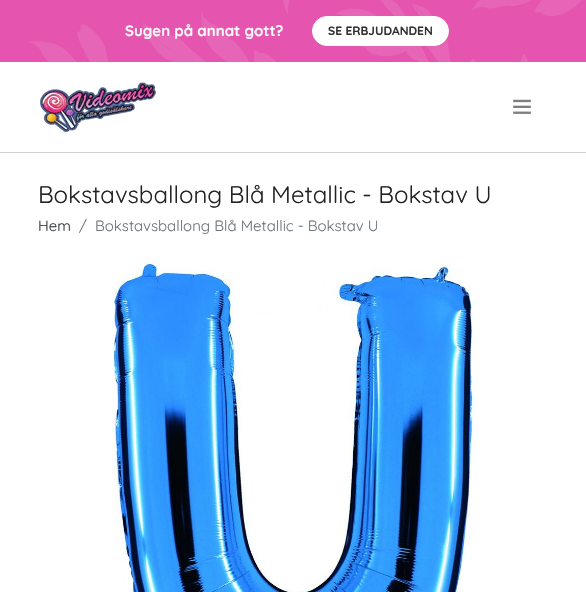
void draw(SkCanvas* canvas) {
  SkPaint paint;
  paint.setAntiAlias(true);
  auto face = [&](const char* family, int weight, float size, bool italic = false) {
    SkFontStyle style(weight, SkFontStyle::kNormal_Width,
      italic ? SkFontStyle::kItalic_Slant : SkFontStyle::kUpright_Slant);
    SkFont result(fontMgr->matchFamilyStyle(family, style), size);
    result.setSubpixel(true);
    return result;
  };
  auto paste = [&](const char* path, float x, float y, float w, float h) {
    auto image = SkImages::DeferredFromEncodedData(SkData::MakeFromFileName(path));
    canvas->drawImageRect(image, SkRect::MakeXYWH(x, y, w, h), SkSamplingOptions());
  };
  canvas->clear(0xffffffff);
  paint.setColor(0xffd1d1d1);
  canvas->drawRect(SkRect::MakeXYWH(0, 152, 586, 1), paint);
  paint.setColor(0xffe554ae);
  canvas->drawRect(SkRect::MakeXYWH(0, 0, 586, 62), paint);
  paste("img/1.png", 29, 0, 553, 62);
  paint.setColor(0xffffffff);
  canvas->drawRoundRect(SkRect::MakeXYWH(312.5f, 16.5f, 136, 29), 14.5f, 14.5f, paint);
  paint.setStroke(true);
  paint.setStrokeWidth(1);
  canvas->drawRoundRect(SkRect::MakeXYWH(312.5f, 16.5f, 136, 29), 14.5f, 14.5f, paint);
  paste("img/2.png", 40, 82, 116, 50);
  paste("img/3.png", 513, 99, 18, 15);
  paste("img/4.png", 111, 257, 368, 335);
  auto f0 = face("Quicksand", 700, 15);
  paint.setStroke(false);
  paint.setColor(0xfff8f9fa);
  canvas->drawString("Sugen på annat gott?", 125, 36, f0, paint);
  auto f1 = face("Quicksand", 700, 12);
  paint.setColor(0xff333333);
  canvas->drawString("SE ERBJUDANDEN", 328, 35, f1, paint);
  auto f2 = face("Quicksand", 400, 24);
  paint.setColor(0xff222222);
  canvas->drawString("Bokstavsballong Blå Metallic - Bokstav U", 38, 203, f2, paint);
  auto f3 = face("Quicksand", 400, 15);
  paint.setColor(0xff343a40);
  canvas->drawString("Hem", 38, 231, f3, paint);
  paint.setColor(0xff6c757d);
  canvas->drawString("/", 79, 231, f3, paint);
  canvas->drawString("Bokstavsballong Blå Metallic - Bokstav U", 95, 231, f3, paint);
}
